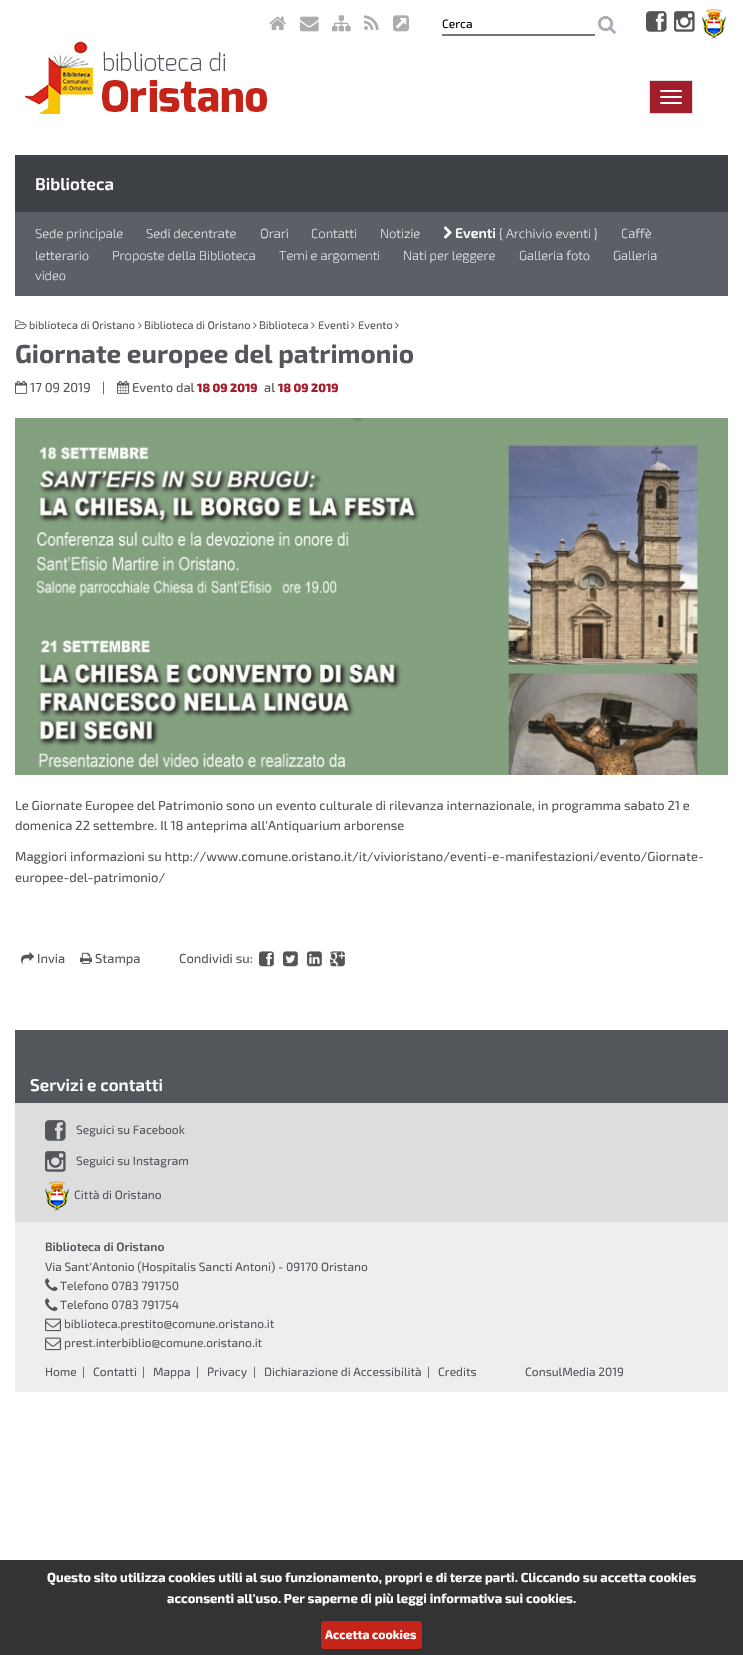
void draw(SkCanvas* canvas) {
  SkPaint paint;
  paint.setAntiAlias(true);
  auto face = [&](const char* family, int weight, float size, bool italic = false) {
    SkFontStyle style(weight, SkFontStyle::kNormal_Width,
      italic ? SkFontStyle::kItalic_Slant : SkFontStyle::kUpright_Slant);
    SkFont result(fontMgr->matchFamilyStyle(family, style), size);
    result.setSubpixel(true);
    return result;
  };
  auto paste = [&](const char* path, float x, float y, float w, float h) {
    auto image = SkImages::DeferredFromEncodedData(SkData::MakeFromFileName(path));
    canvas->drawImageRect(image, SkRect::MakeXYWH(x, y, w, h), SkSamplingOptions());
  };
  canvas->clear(0xffffffff);
  paste("img/1.png", 269, 16, 17, 14);
  paste("img/2.png", 300, 16, 19, 16);
  paste("img/3.png", 332, 15, 19, 17);
  paste("img/4.png", 364, 15, 15, 15);
  paste("img/5.png", 393, 15, 16, 17);
  paint.setColor(0xff767676);
  canvas->drawRect(SkRect::MakeXYWH(442, 34, 153, 2), paint);
  paste("img/6.png", 598, 16, 18, 18);
  paste("img/7.png", 646, 11, 21, 21);
  paste("img/8.png", 674, 11, 21, 21);
  paste("img/9.png", 702, 9, 24, 30);
  paste("img/10.png", 25, 41, 242, 73);
  paint.setColor(0xffa31e2d);
  canvas->drawRect(SkRect::MakeXYWH(649.5f, 80.5f, 43, 33), paint);
  paint.setStroke(true);
  paint.setStrokeWidth(1);
  paint.setColor(0xffdddddd);
  canvas->drawRect(SkRect::MakeXYWH(649.5f, 80.5f, 43, 33), paint);
  paint.setStroke(false);
  paint.setColor(0xffffffff);
  canvas->drawRoundRect(SkRect::MakeXYWH(660, 90, 22, 2), 1, 1, paint);
  canvas->drawRoundRect(SkRect::MakeXYWH(660, 96, 22, 2), 1, 1, paint);
  canvas->drawRoundRect(SkRect::MakeXYWH(660, 102, 22, 2), 1, 1, paint);
  paint.setColor(0xff5c5f66);
  canvas->drawRect(SkRect::MakeXYWH(15, 212, 713, 84), paint);
  paint.setColor(0xff3e4145);
  canvas->drawRect(SkRect::MakeXYWH(15, 155, 713, 57), paint);
  paste("img/11.png", 444, 226, 8, 13);
  paste("img/12.png", 15, 320, 12, 9);
  paste("img/13.png", 138, 322, 4, 7);
  paste("img/13.png", 253, 322, 4, 7);
  paste("img/13.png", 311, 322, 4, 7);
  paste("img/13.png", 351, 322, 4, 7);
  paste("img/13.png", 395, 322, 4, 7);
  paste("img/14.png", 15, 380, 13, 14);
  paste("img/15.png", 117, 380, 13, 14);
  paste("img/16.png", 15, 418, 713, 357);
  paste("img/17.png", 21, 952, 13, 12);
  paste("img/18.png", 80, 952, 13, 12);
  paste("img/19.png", 259, 951, 15, 16);
  paste("img/20.png", 283, 951, 15, 16);
  paste("img/21.png", 307, 951, 15, 16);
  paste("img/22.png", 330, 951, 15, 16);
  paint.setColor(0xff53565b);
  canvas->drawRect(SkRect::MakeXYWH(15, 1030, 713, 73), paint);
  paint.setColor(0xffddddde);
  canvas->drawRect(SkRect::MakeXYWH(15, 1103, 713, 119), paint);
  paste("img/23.png", 45, 1120, 21, 21);
  paste("img/24.png", 45, 1151, 21, 21);
  paste("img/25.png", 45, 1181, 24, 30);
  paint.setColor(0xffedeeee);
  canvas->drawRect(SkRect::MakeXYWH(15, 1222, 713, 170), paint);
  paste("img/26.png", 45, 1278, 13, 13);
  paste("img/26.png", 45, 1298, 13, 13);
  paste("img/27.png", 45, 1318, 16, 14);
  paste("img/27.png", 45, 1337, 16, 14);
  paint.setColor(0xff333333);
  canvas->drawRect(SkRect::MakeXYWH(0, 1560, 743, 95), paint);
  paint.setColor(0x40000000);
  paint.setMaskFilter(SkMaskFilter::MakeBlur(kNormal_SkBlurStyle, 1));
  canvas->drawRoundRect(SkRect::MakeXYWH(321, 1621, 101, 28), 3, 3, paint);
  paint.setMaskFilter(nullptr);
  paint.setColor(0xffc62418);
  canvas->drawRoundRect(SkRect::MakeXYWH(321, 1621, 101, 28), 3, 3, paint);
  auto f0 = face("Exo 2", 400, 12);
  paint.setColor(0xff000000);
  canvas->drawString("Cerca", 442, 28, f0, paint);
  auto f1 = face("Exo 2", 600, 17);
  paint.setColor(0xffffffff);
  canvas->drawString("Biblioteca", 35, 190, f1, paint);
  auto f2 = face("Exo 2", 200, 13);
  {
    const struct { const char* s; float x, y; } items[] = {
      {"Sede principale", 35, 238},
      {"Sedi decentrate", 146, 238},
      {"Orari", 260, 238},
      {"Contatti", 311, 238},
      {"Notizie", 380, 238},
    };
    for (auto [s, x, y] : items) {
      canvas->drawString(s, x, y, f2, paint);
    }
  }
  auto f3 = face("Exo 2", 600, 14);
  canvas->drawString("Eventi", 455, 238, f3, paint);
  {
    const struct { const char* s; float x, y; } items[] = {
      {"{ Archivio eventi }", 499, 238},
      {"Caffè", 621, 238},
      {"letterario", 35, 260},
      {"Proposte della Biblioteca", 112, 260},
      {"Temi e argomenti", 279, 260},
      {"Nati per leggere", 403, 260},
      {"Galleria foto", 519, 260},
      {"Galleria", 613, 260},
      {"video", 35, 280},
    };
    for (auto [s, x, y] : items) {
      canvas->drawString(s, x, y, f2, paint);
    }
  }
  auto f4 = face("Exo 2", 400, 11);
  paint.setColor(0xff53565b);
  {
    const struct { const char* s; float x, y; } items[] = {
      {"biblioteca di Oristano", 29, 329},
      {"Biblioteca di Oristano", 144, 329},
      {"Biblioteca", 259, 329},
      {"Eventi", 318, 329},
      {"Evento", 358, 329},
    };
    for (auto [s, x, y] : items) {
      canvas->drawString(s, x, y, f4, paint);
    }
  }
  auto f5 = face("Exo 2", 700, 26);
  canvas->drawString("Giornate europee del patrimonio", 15, 363, f5, paint);
  auto f6 = face("Exo 2", 400, 13);
  paint.setColor(0xff555555);
  {
    const struct { const char* s; float x, y; } items[] = {
      {"17 09 2019", 30, 392},
      {"|", 102, 392},
      {"Evento dal", 132, 392},
    };
    for (auto [s, x, y] : items) {
      canvas->drawString(s, x, y, f6, paint);
    }
  }
  auto f7 = face("Exo 2", 800, 12);
  paint.setColor(0xffa31e2d);
  canvas->drawString("18 09 2019", 197, 392, f7, paint);
  paint.setColor(0xff555555);
  canvas->drawString("al", 264, 392, f6, paint);
  paint.setColor(0xffa31e2d);
  canvas->drawString("18 09 2019", 278, 392, f7, paint);
  paint.setColor(0xff555555);
  {
    const struct { const char* s; float x, y; } items[] = {
      {"Le Giornate Europee del Patrimonio sono un evento culturale di rilevanza internazionale, in programma sabato 21 e", 15, 810},
      {"domenica 22 settembre. Il 18 anteprima all'Antiquarium arborense", 15, 830},
      {"Maggiori informazioni su http://www.comune.oristano.it/it/vivioristano/eventi-e-manifestazioni/evento/Giornate-", 15, 861},
      {"europee-del-patrimonio/", 15, 882},
      {"Invia", 37, 963},
      {"Stampa", 95, 963},
      {"Condividi su:", 179, 963},
    };
    for (auto [s, x, y] : items) {
      canvas->drawString(s, x, y, f6, paint);
    }
  }
  paint.setColor(0xffffffff);
  canvas->drawString("Servizi e contatti", 30, 1091, f1, paint);
  paint.setColor(0xff53565b);
  {
    const struct { const char* s; float x, y; } items[] = {
      {"Seguici su Facebook", 76, 1134},
      {"Seguici su Instagram", 76, 1165},
      {"Città di Oristano", 74, 1199},
    };
    for (auto [s, x, y] : items) {
      canvas->drawString(s, x, y, f0, paint);
    }
  }
  auto f8 = face("Exo 2", 600, 12);
  canvas->drawString("Biblioteca di Oristano", 45, 1251, f8, paint);
  {
    const struct { const char* s; float x, y; } items[] = {
      {"Via Sant'Antonio (Hospitalis Sancti Antoni) - 09170 Oristano", 45, 1271},
      {"Telefono 0783 791750", 60, 1290},
      {"Telefono 0783 791754", 60, 1309},
      {"biblioteca.prestito@comune.oristano.it", 64, 1328},
      {"prest.interbiblio@comune.oristano.it", 64, 1347},
      {"Home", 45, 1376},
      {"|", 82, 1376},
      {"Contatti", 93, 1376},
      {"|", 142, 1376},
      {"Mappa", 153, 1376},
      {"|", 196, 1376},
      {"Privacy", 207, 1376},
      {"|", 253, 1376},
      {"Dichiarazione di Accessibilità", 264, 1376},
      {"|", 427, 1376},
      {"Credits", 438, 1376},
      {"ConsulMedia 2019", 525, 1376},
    };
    for (auto [s, x, y] : items) {
      canvas->drawString(s, x, y, f0, paint);
    }
  }
  auto f9 = face("Exo 2", 700, 13);
  paint.setColor(0xffffffff);
  canvas->drawString("Questo sito utilizza cookies utili al suo funzionamento, propri e di terze parti. Cliccando su accetta cookies", 47, 1582, f9, paint);
  canvas->drawString("acconsenti all'uso. Per saperne di più leggi informativa sui cookies.", 167, 1603, f9, paint);
  auto f10 = face("Exo 2", 700, 12.25f);
  canvas->drawString("Accetta cookies", 325, 1639, f10, paint);
}
